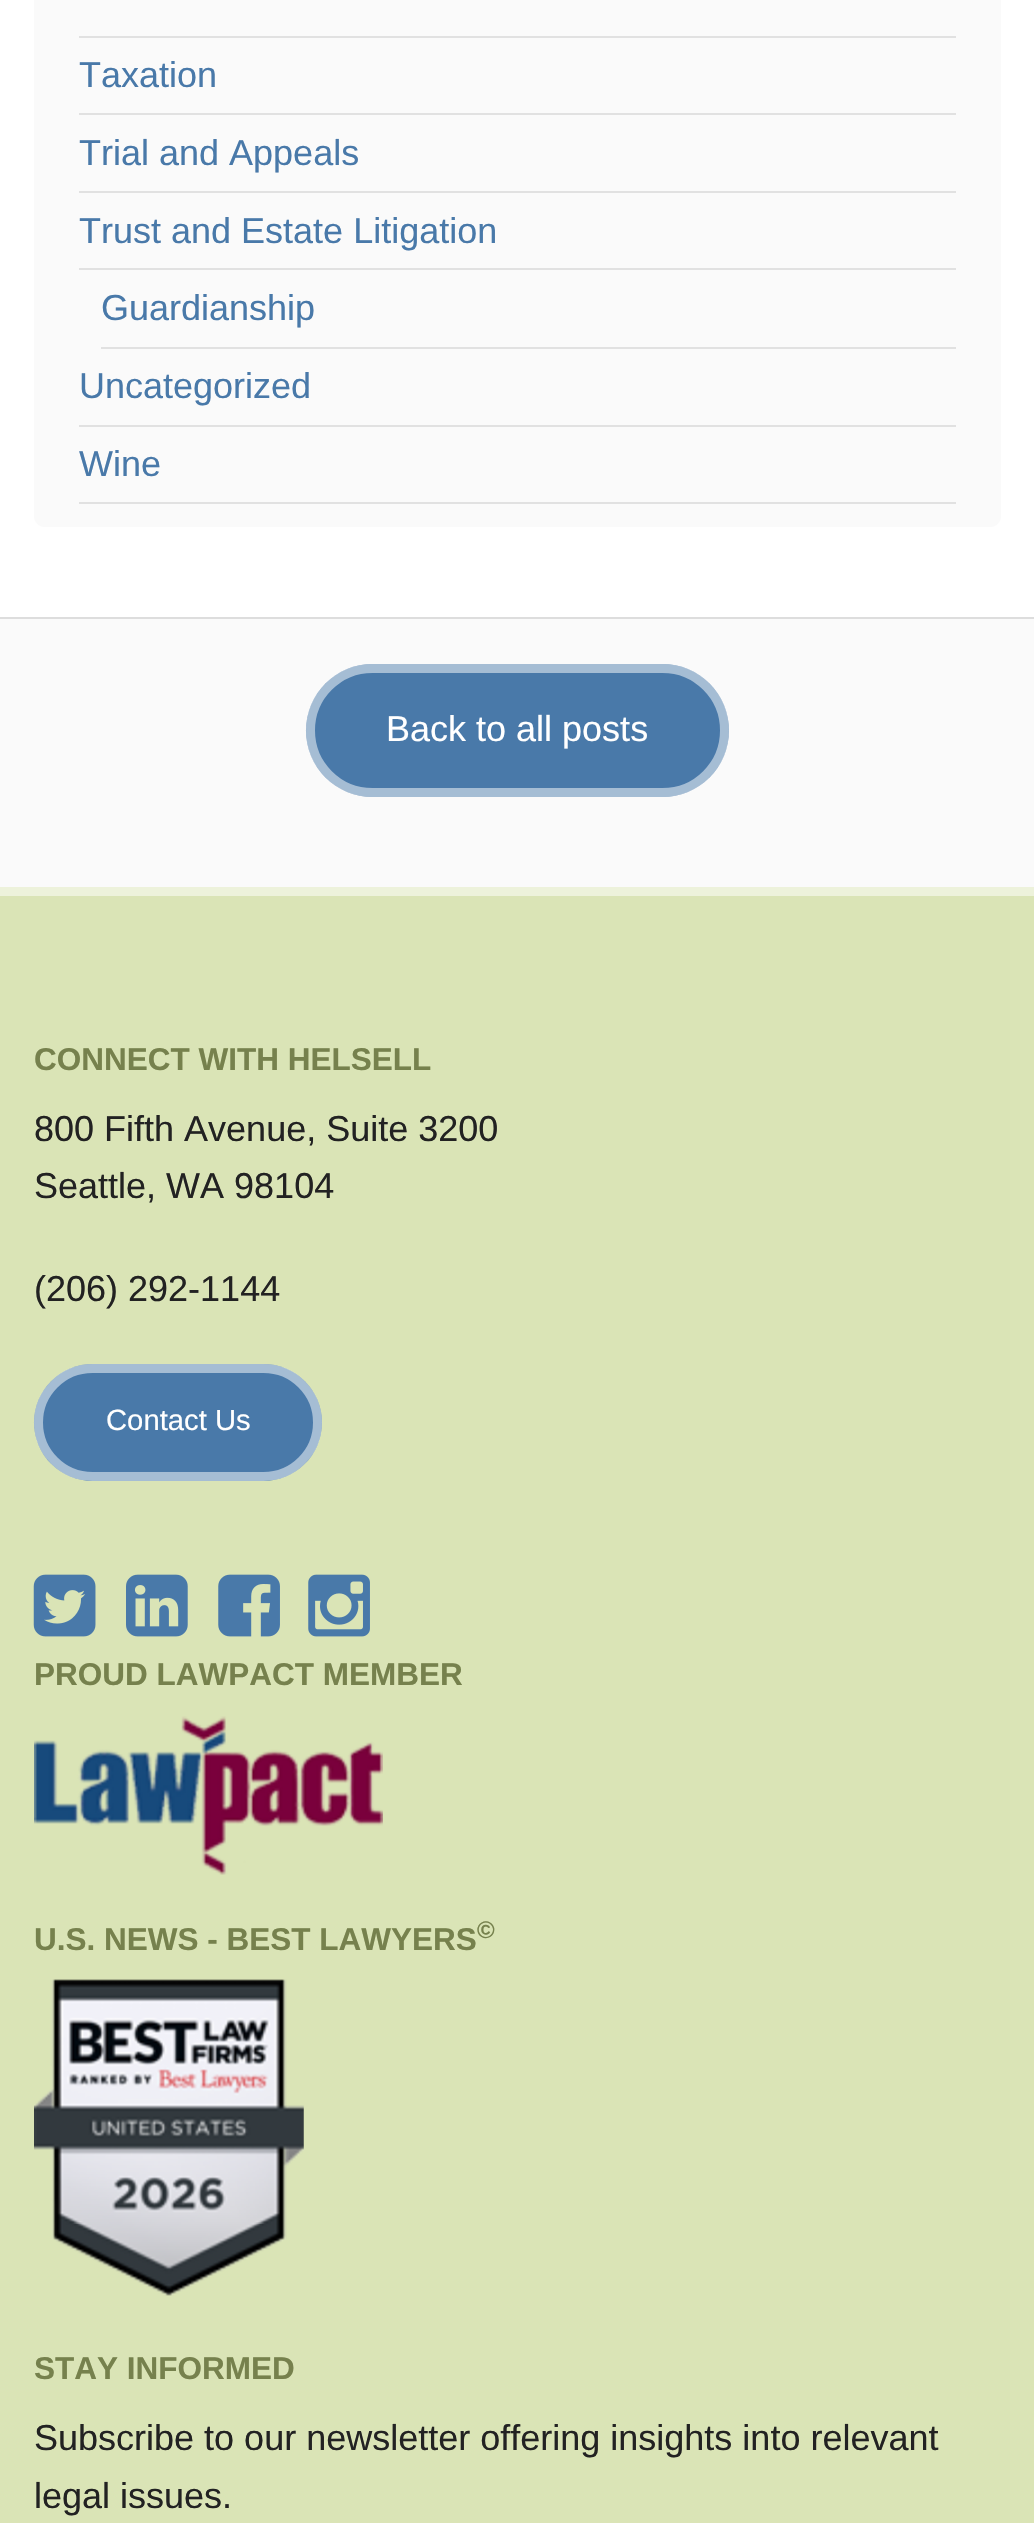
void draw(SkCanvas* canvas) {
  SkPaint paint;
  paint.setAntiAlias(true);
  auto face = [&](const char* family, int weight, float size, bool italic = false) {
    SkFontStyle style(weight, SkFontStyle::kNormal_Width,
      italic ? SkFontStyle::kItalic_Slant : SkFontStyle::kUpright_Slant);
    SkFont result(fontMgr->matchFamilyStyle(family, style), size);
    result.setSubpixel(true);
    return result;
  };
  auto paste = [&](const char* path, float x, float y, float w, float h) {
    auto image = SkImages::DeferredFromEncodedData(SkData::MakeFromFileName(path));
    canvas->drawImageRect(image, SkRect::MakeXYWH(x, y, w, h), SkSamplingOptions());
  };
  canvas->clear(0xffffffff);
  paint.setColor(0xfffafafa);
  canvas->drawRoundRect(SkRect::MakeXYWH(34, -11, 967, 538), 11, 11, paint);
  {
    const struct { float x, y, w, h; SkColor color; } items[] = {
      {79, 36, 877, 2, 0xffe1e1e1},
      {79, 113, 877, 2, 0xffe1e1e1},
      {79, 191, 877, 2, 0xffe1e1e1},
      {79, 268, 877, 2, 0xffe1e1e1},
      {101, 347, 855, 2, 0xffe1e1e1},
      {79, 425, 877, 2, 0xffe1e1e1},
      {79, 502, 877, 2, 0xffe1e1e1},
      {0, 619, 1034, 268, 0xfffafafa},
      {0, 617, 1034, 2, 0xffdddddd},
    };
    for (auto [x, y, w, h, color] : items) {
      paint.setColor(color);
      canvas->drawRect(SkRect::MakeXYWH(x, y, w, h), paint);
    }
  }
  paint.setColor(0xff4979a9);
  canvas->drawRoundRect(SkRect::MakeXYWH(306, 664, 423, 133), 66.5f, 66.5f, paint);
  paint.setStroke(true);
  paint.setStrokeWidth(9);
  paint.setColor(0x80ffffff);
  canvas->drawRoundRect(SkRect::MakeXYWH(310.5f, 668.5f, 414, 124), 62, 62, paint);
  paint.setStroke(false);
  paint.setColor(0xffdae4b6);
  canvas->drawRect(SkRect::MakeXYWH(0, 896, 1034, 1627), paint);
  paint.setColor(0xffedf2db);
  canvas->drawRect(SkRect::MakeXYWH(0, 887, 1034, 9), paint);
  paint.setColor(0xff4979a9);
  canvas->drawRoundRect(SkRect::MakeXYWH(34, 1364, 288, 117), 58.5f, 58.5f, paint);
  paint.setStroke(true);
  paint.setColor(0x80ffffff);
  canvas->drawRoundRect(SkRect::MakeXYWH(38.5f, 1368.5f, 279, 108), 54, 54, paint);
  paste("img/1.png", 33, 1574, 63, 63);
  paste("img/2.png", 126, 1574, 62, 63);
  paste("img/3.png", 218, 1574, 62, 63);
  paste("img/4.png", 308, 1574, 62, 63);
  paste("img/5.png", 34, 1716, 349, 159);
  paste("img/6.png", 34, 1979, 270, 317);
  auto f0 = face("Liberation Sans", 400, 36);
  paint.setStroke(false);
  paint.setColor(0xff4979a9);
  {
    const struct { const char* s; float x, y; } items[] = {
      {"Taxation", 79, 87},
      {"Trial and Appeals", 79, 165},
      {"Trust and Estate Litigation", 79, 243},
      {"Guardianship", 101, 320},
      {"Uncategorized", 79, 398},
      {"Wine", 79, 476},
    };
    for (auto [s, x, y] : items) {
      canvas->drawString(s, x, y, f0, paint);
    }
  }
  paint.setColor(0xffffffff);
  canvas->drawString("Back to all posts", 386, 741, f0, paint);
  auto f1 = face("Liberation Sans", 700, 31.5f);
  paint.setColor(0xff76814d);
  canvas->drawString("CONNECT WITH HELSELL", 34, 1070, f1, paint);
  paint.setColor(0xff222222);
  {
    const struct { const char* s; float x, y; } items[] = {
      {"800 Fifth Avenue, Suite 3200", 34, 1141},
      {"Seattle, WA 98104", 34, 1198},
      {"(206) 292-1144", 34, 1301},
    };
    for (auto [s, x, y] : items) {
      canvas->drawString(s, x, y, f0, paint);
    }
  }
  auto f2 = face("Liberation Sans", 400, 29.25f);
  paint.setColor(0xffffffff);
  canvas->drawString("Contact Us", 106, 1430, f2, paint);
  paint.setColor(0xff76814d);
  canvas->drawString("PROUD LAWPACT MEMBER", 34, 1685, f1, paint);
  canvas->drawString("U.S. NEWS - BEST LAWYERS", 34, 1950, f1, paint);
  auto f3 = face("Liberation Sans", 700, 24);
  canvas->drawString("©", 477, 1938, f3, paint);
  canvas->drawString("STAY INFORMED", 34, 2379, f1, paint);
  paint.setColor(0xff222222);
  canvas->drawString("Subscribe to our newsletter offering insights into relevant", 34, 2450, f0, paint);
  canvas->drawString("legal issues.", 34, 2508, f0, paint);
}
